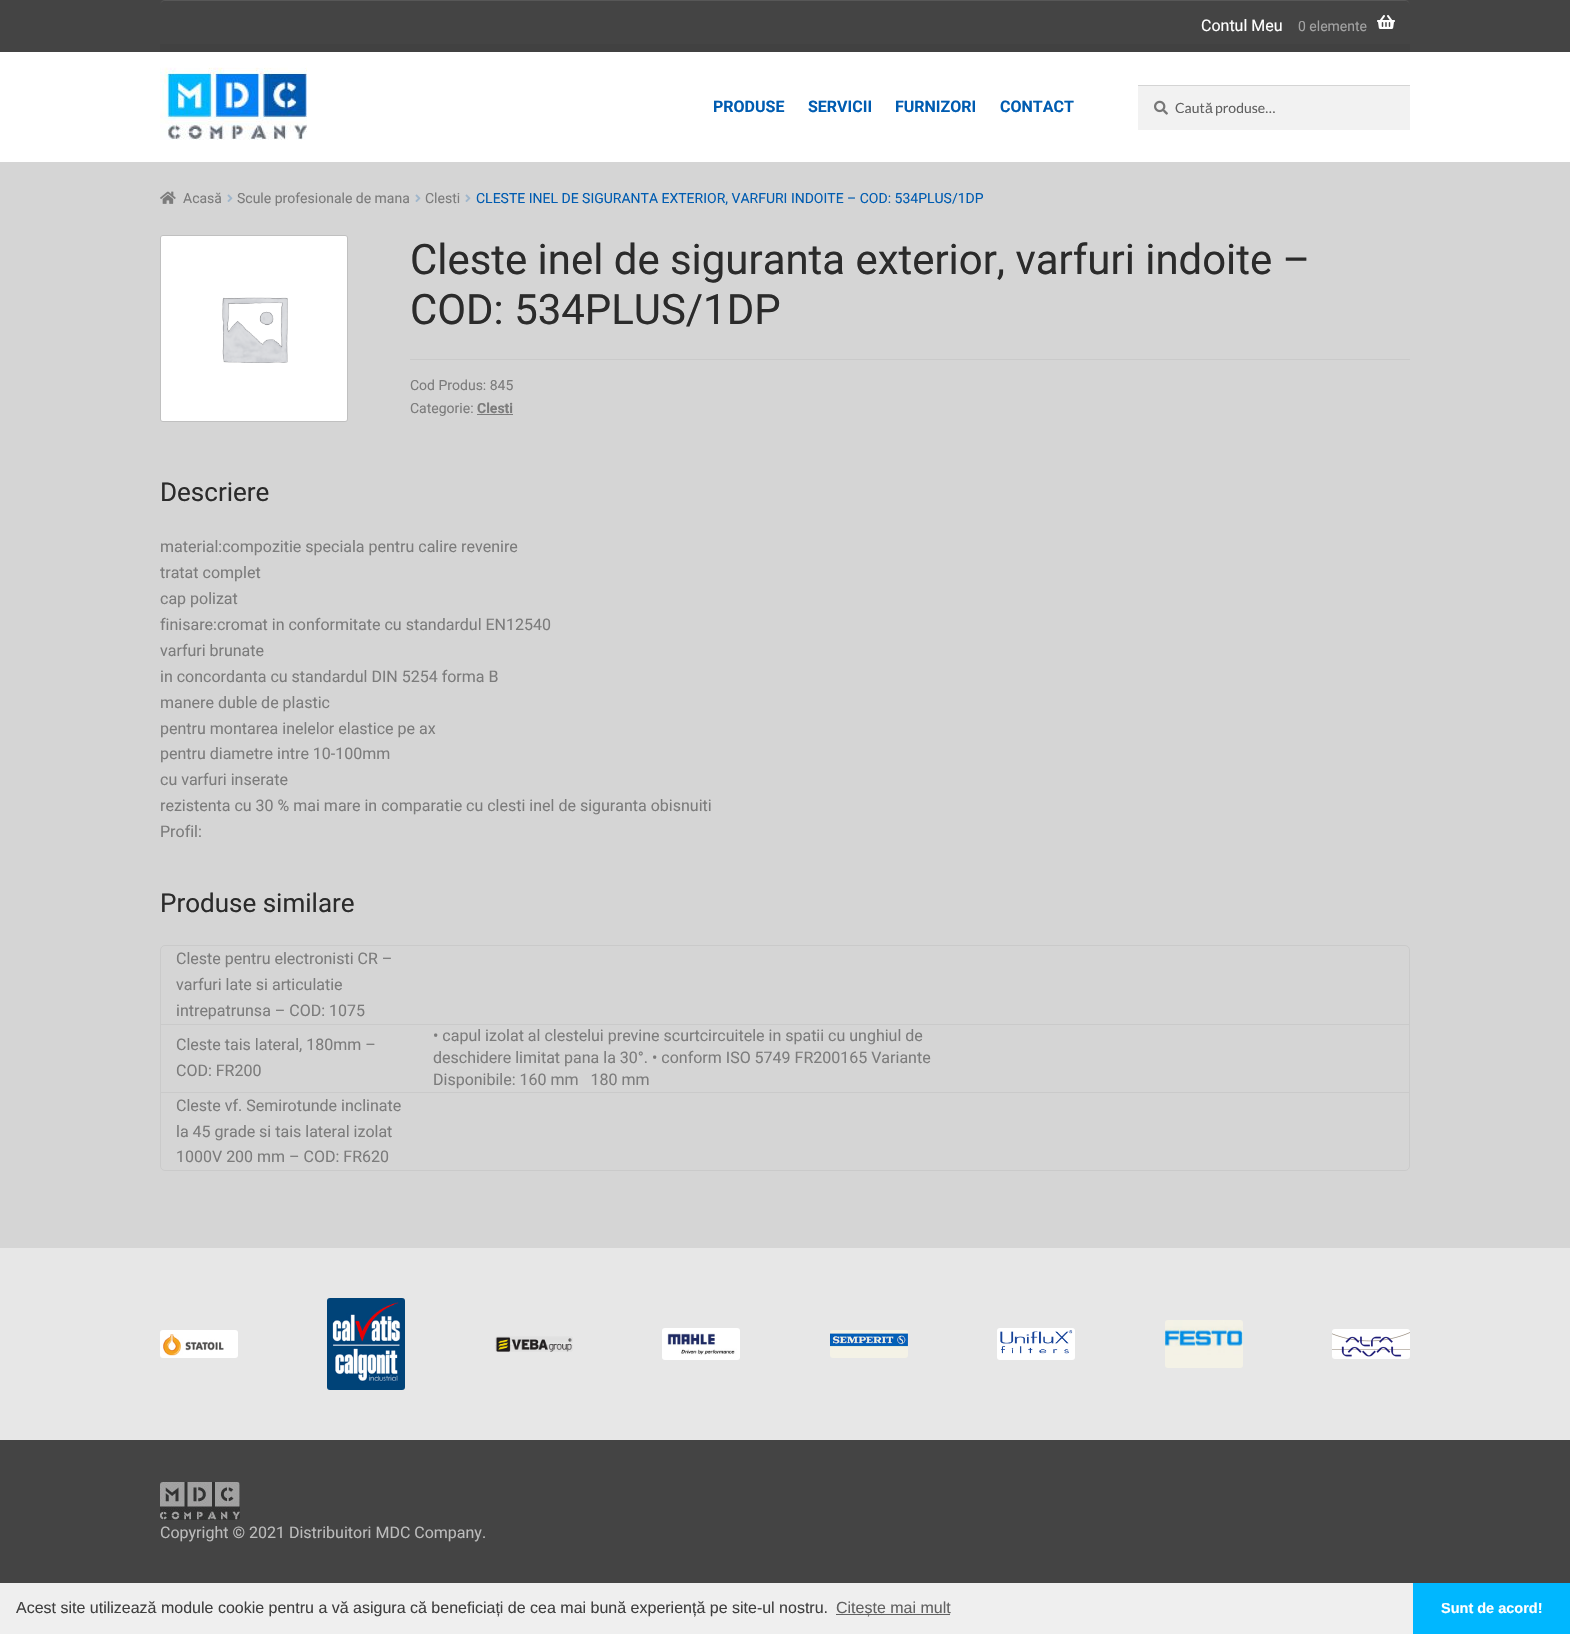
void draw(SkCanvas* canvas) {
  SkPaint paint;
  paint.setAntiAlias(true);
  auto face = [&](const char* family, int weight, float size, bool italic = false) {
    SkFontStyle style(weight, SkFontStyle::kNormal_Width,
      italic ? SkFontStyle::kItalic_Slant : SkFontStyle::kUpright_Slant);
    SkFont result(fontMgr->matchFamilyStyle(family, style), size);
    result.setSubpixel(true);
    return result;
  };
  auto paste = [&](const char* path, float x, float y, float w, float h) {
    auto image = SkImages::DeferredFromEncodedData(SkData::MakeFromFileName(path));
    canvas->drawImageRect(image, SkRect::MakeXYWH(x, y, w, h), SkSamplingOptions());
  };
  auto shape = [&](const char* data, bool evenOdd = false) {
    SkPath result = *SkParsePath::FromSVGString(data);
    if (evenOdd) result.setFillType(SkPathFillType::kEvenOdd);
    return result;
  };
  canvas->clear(0xff444444);
  paint.setColor(0xffffffff);
  canvas->drawRect(SkRect::MakeXYWH(0, 52, 1570, 110), paint);
  paint.setColor(0xff414141);
  canvas->drawRect(SkRect::MakeXYWH(160, 44, 1250, 8), paint);
  paint.setColor(0xff575757);
  canvas->drawPath(shape("M165 1H1405C1408 1 1410 3 1410 6C1410 3 1408 0 1405 0H165C162 0 160 3 160 6C160 3 162 1 165 1Z"), paint);
  paste("img/1.png", 1377, 15, 18, 14);
  paste("img/2.png", 160, 67, 147, 73);
  paint.setColor(0xfff2f2f2);
  canvas->drawRect(SkRect::MakeXYWH(1138, 86, 272, 44), paint);
  paste("img/3.png", 1154, 100, 14, 15);
  paint.setColor(0xffd4d4d4);
  canvas->drawRect(SkRect::MakeXYWH(1138, 85, 272, 1), paint);
  paint.setColor(0xffd5d5d5);
  canvas->drawRect(SkRect::MakeXYWH(0, 162, 1570, 1086), paint);
  paste("img/4.png", 160, 191, 16, 13);
  paste("img/5.png", 227, 194, 6, 8);
  paste("img/5.png", 415, 194, 6, 8);
  paste("img/5.png", 465, 194, 6, 8);
  paint.setStroke(true);
  paint.setStrokeWidth(1);
  paint.setColor(0xffc0c0c0);
  canvas->drawRoundRect(SkRect::MakeXYWH(160.5f, 235.5f, 187, 186), 2.5f, 2.5f, paint);
  paste("img/6.png", 161, 236, 186, 185);
  paint.setStroke(false);
  paint.setColor(0xffcacaca);
  canvas->drawRect(SkRect::MakeXYWH(410, 359, 1000, 1), paint);
  paint.setColor(0xff7c7c7c);
  canvas->drawRect(SkRect::MakeXYWH(477, 414, 36, 1), paint);
  paint.setStroke(true);
  paint.setColor(0xffcacaca);
  canvas->drawRoundRect(SkRect::MakeXYWH(160.5f, 945.5f, 1249, 225), 4.5f, 4.5f, paint);
  paint.setStroke(false);
  {
    const struct { float x, y, w, h; SkColor color; } items[] = {
      {161, 1024, 1248, 1, 0xffcacaca},
      {161, 1092, 1248, 1, 0xffcacaca},
      {0, 1248, 1570, 192, 0xffe7e7e7},
    };
    for (auto [x, y, w, h, color] : items) {
      paint.setColor(color);
      canvas->drawRect(SkRect::MakeXYWH(x, y, w, h), paint);
    }
  }
  paste("img/7.png", 160, 1330, 78, 28);
  paste("img/8.png", 327, 1298, 78, 92);
  paste("img/9.png", 495, 1336, 78, 16);
  paste("img/10.png", 662, 1328, 78, 32);
  paste("img/11.png", 830, 1330, 78, 28);
  paste("img/12.png", 997, 1328, 78, 32);
  paste("img/13.png", 1165, 1320, 78, 48);
  paste("img/14.png", 1332, 1329, 78, 30);
  paste("img/15.png", 160, 1482, 80, 38);
  {
    const struct { float x, y, w, h; SkColor color; } items[] = {
      {0, 1583, 1413, 51, 0xffefefef},
      {836, 1614, 114, 1, 0xff636363},
      {1413, 1583, 157, 51, 0xff00b7ff},
    };
    for (auto [x, y, w, h, color] : items) {
      paint.setColor(color);
      canvas->drawRect(SkRect::MakeXYWH(x, y, w, h), paint);
    }
  }
  auto f0 = face("Roboto", 400, 16);
  paint.setColor(0xffffffff);
  canvas->drawString("Contul Meu", 1201, 31, f0, paint);
  auto f1 = face("Roboto", 400, 14);
  paint.setColor(0xffa2a2a2);
  canvas->drawString("0 elemente", 1298, 31, f1, paint);
  auto f2 = face("Roboto", 700, 16);
  paint.setColor(0xff005cb1);
  {
    const struct { const char* s; float x, y; } items[] = {
      {"PRODUSE", 713, 112},
      {"SERVICII", 808, 112},
      {"FURNIZORI", 895, 112},
      {"CONTACT", 1000, 112},
    };
    for (auto [s, x, y] : items) {
      canvas->drawString(s, x, y, f2, paint);
    }
  }
  auto f3 = face("Lato", 400, 14);
  paint.setColor(0xff616161);
  canvas->drawString("Caut", 1175, 113, f3, paint);
  auto f4 = face("Liberation Sans", 400, 14);
  canvas->drawString("ă", 1205, 113, f4, paint);
  canvas->drawString("produse…", 1215, 113, f3, paint);
  paint.setColor(0xff7c7c7c);
  {
    const struct { const char* s; float x, y; } items[] = {
      {"Acasă", 183, 203},
      {"Scule profesionale de mana", 237, 203},
      {"Clesti", 425, 203},
    };
    for (auto [s, x, y] : items) {
      canvas->drawString(s, x, y, f1, paint);
    }
  }
  paint.setColor(0xff005cb1);
  canvas->drawString("CLESTE INEL DE SIGURANTA EXTERIOR, VARFURI INDOITE – COD: 534PLUS/1DP", 476, 203, f1, paint);
  auto f5 = face("Roboto", 400, 41.9f);
  paint.setColor(0xff2b2b2b);
  canvas->drawString("Cleste inel de siguranta exterior, varfuri indoite –", 410, 274, f5, paint);
  canvas->drawString("COD: 534PLUS/1DP", 410, 324, f5, paint);
  paint.setColor(0xff7c7c7c);
  canvas->drawString("Cod Produs: 845", 410, 390, f1, paint);
  canvas->drawString("Categorie:", 410, 413, f1, paint);
  auto f6 = face("Roboto", 700, 14);
  canvas->drawString("Clesti", 477, 413, f6, paint);
  auto f7 = face("Roboto", 400, 26);
  paint.setColor(0xff2b2b2b);
  canvas->drawString("Descriere", 160, 501, f7, paint);
  paint.setColor(0xff7c7c7c);
  {
    const struct { const char* s; float x, y; } items[] = {
      {"material:compozitie speciala pentru calire revenire", 160, 552},
      {"tratat complet", 160, 578},
      {"cap polizat", 160, 604},
      {"finisare:cromat in conformitate cu standardul EN12540", 160, 630},
      {"varfuri brunate", 160, 656},
      {"in concordanta cu standardul DIN 5254 forma B", 160, 682},
      {"manere duble de plastic", 160, 708},
      {"pentru montarea inelelor elastice pe ax", 160, 734},
      {"pentru diametre intre 10-100mm", 160, 759},
      {"cu varfuri inserate", 160, 785},
      {"rezistenta cu 30 % mai mare in comparatie cu clesti inel de siguranta obisnuiti", 160, 811},
      {"Profil:", 160, 837},
    };
    for (auto [s, x, y] : items) {
      canvas->drawString(s, x, y, f0, paint);
    }
  }
  paint.setColor(0xff2b2b2b);
  canvas->drawString("Produse similare", 160, 912, f7, paint);
  paint.setColor(0xff7c7c7c);
  {
    const struct { const char* s; float x, y; } items[] = {
      {"Cleste pentru electronisti CR –", 176, 964},
      {"varfuri late si articulatie", 176, 990},
      {"intrepatrunsa – COD: 1075", 176, 1016},
      {"Cleste tais lateral, 180mm –", 176, 1050},
      {"COD: FR200", 176, 1076},
      {"• capul izolat al clestelui previne scurtcircuitele in spatii cu unghiul de", 433, 1041},
      {"deschidere limitat pana la 30°. • conform ISO 5749 FR200165 Variante", 433, 1063},
      {"Disponibile: 160 mm   180 mm", 433, 1085},
      {"Cleste vf. Semirotunde inclinate", 176, 1111},
      {"la 45 grade si tais lateral izolat", 176, 1137},
      {"1000V 200 mm – COD: FR620", 176, 1162},
    };
    for (auto [s, x, y] : items) {
      canvas->drawString(s, x, y, f0, paint);
    }
  }
  paint.setColor(0xffbbbbbb);
  canvas->drawString("Copyright © 2021 Distribuitori MDC Company.", 160, 1538, f0, paint);
  auto f8 = face("Liberation Sans", 400, 16);
  paint.setColor(0xff404040);
  canvas->drawString("Acest site utilizează module cookie pentru a vă asigura că beneficiați de cea mai bună experiență pe site-ul nostru.", 16, 1613, f8, paint);
  paint.setColor(0xff616161);
  canvas->drawString("Citește mai mult", 836, 1613, f8, paint);
  auto f9 = face("Liberation Sans", 700, 14.5f);
  paint.setColor(0xffffffff);
  canvas->drawString("Sunt de acord!", 1441, 1613, f9, paint);
}
